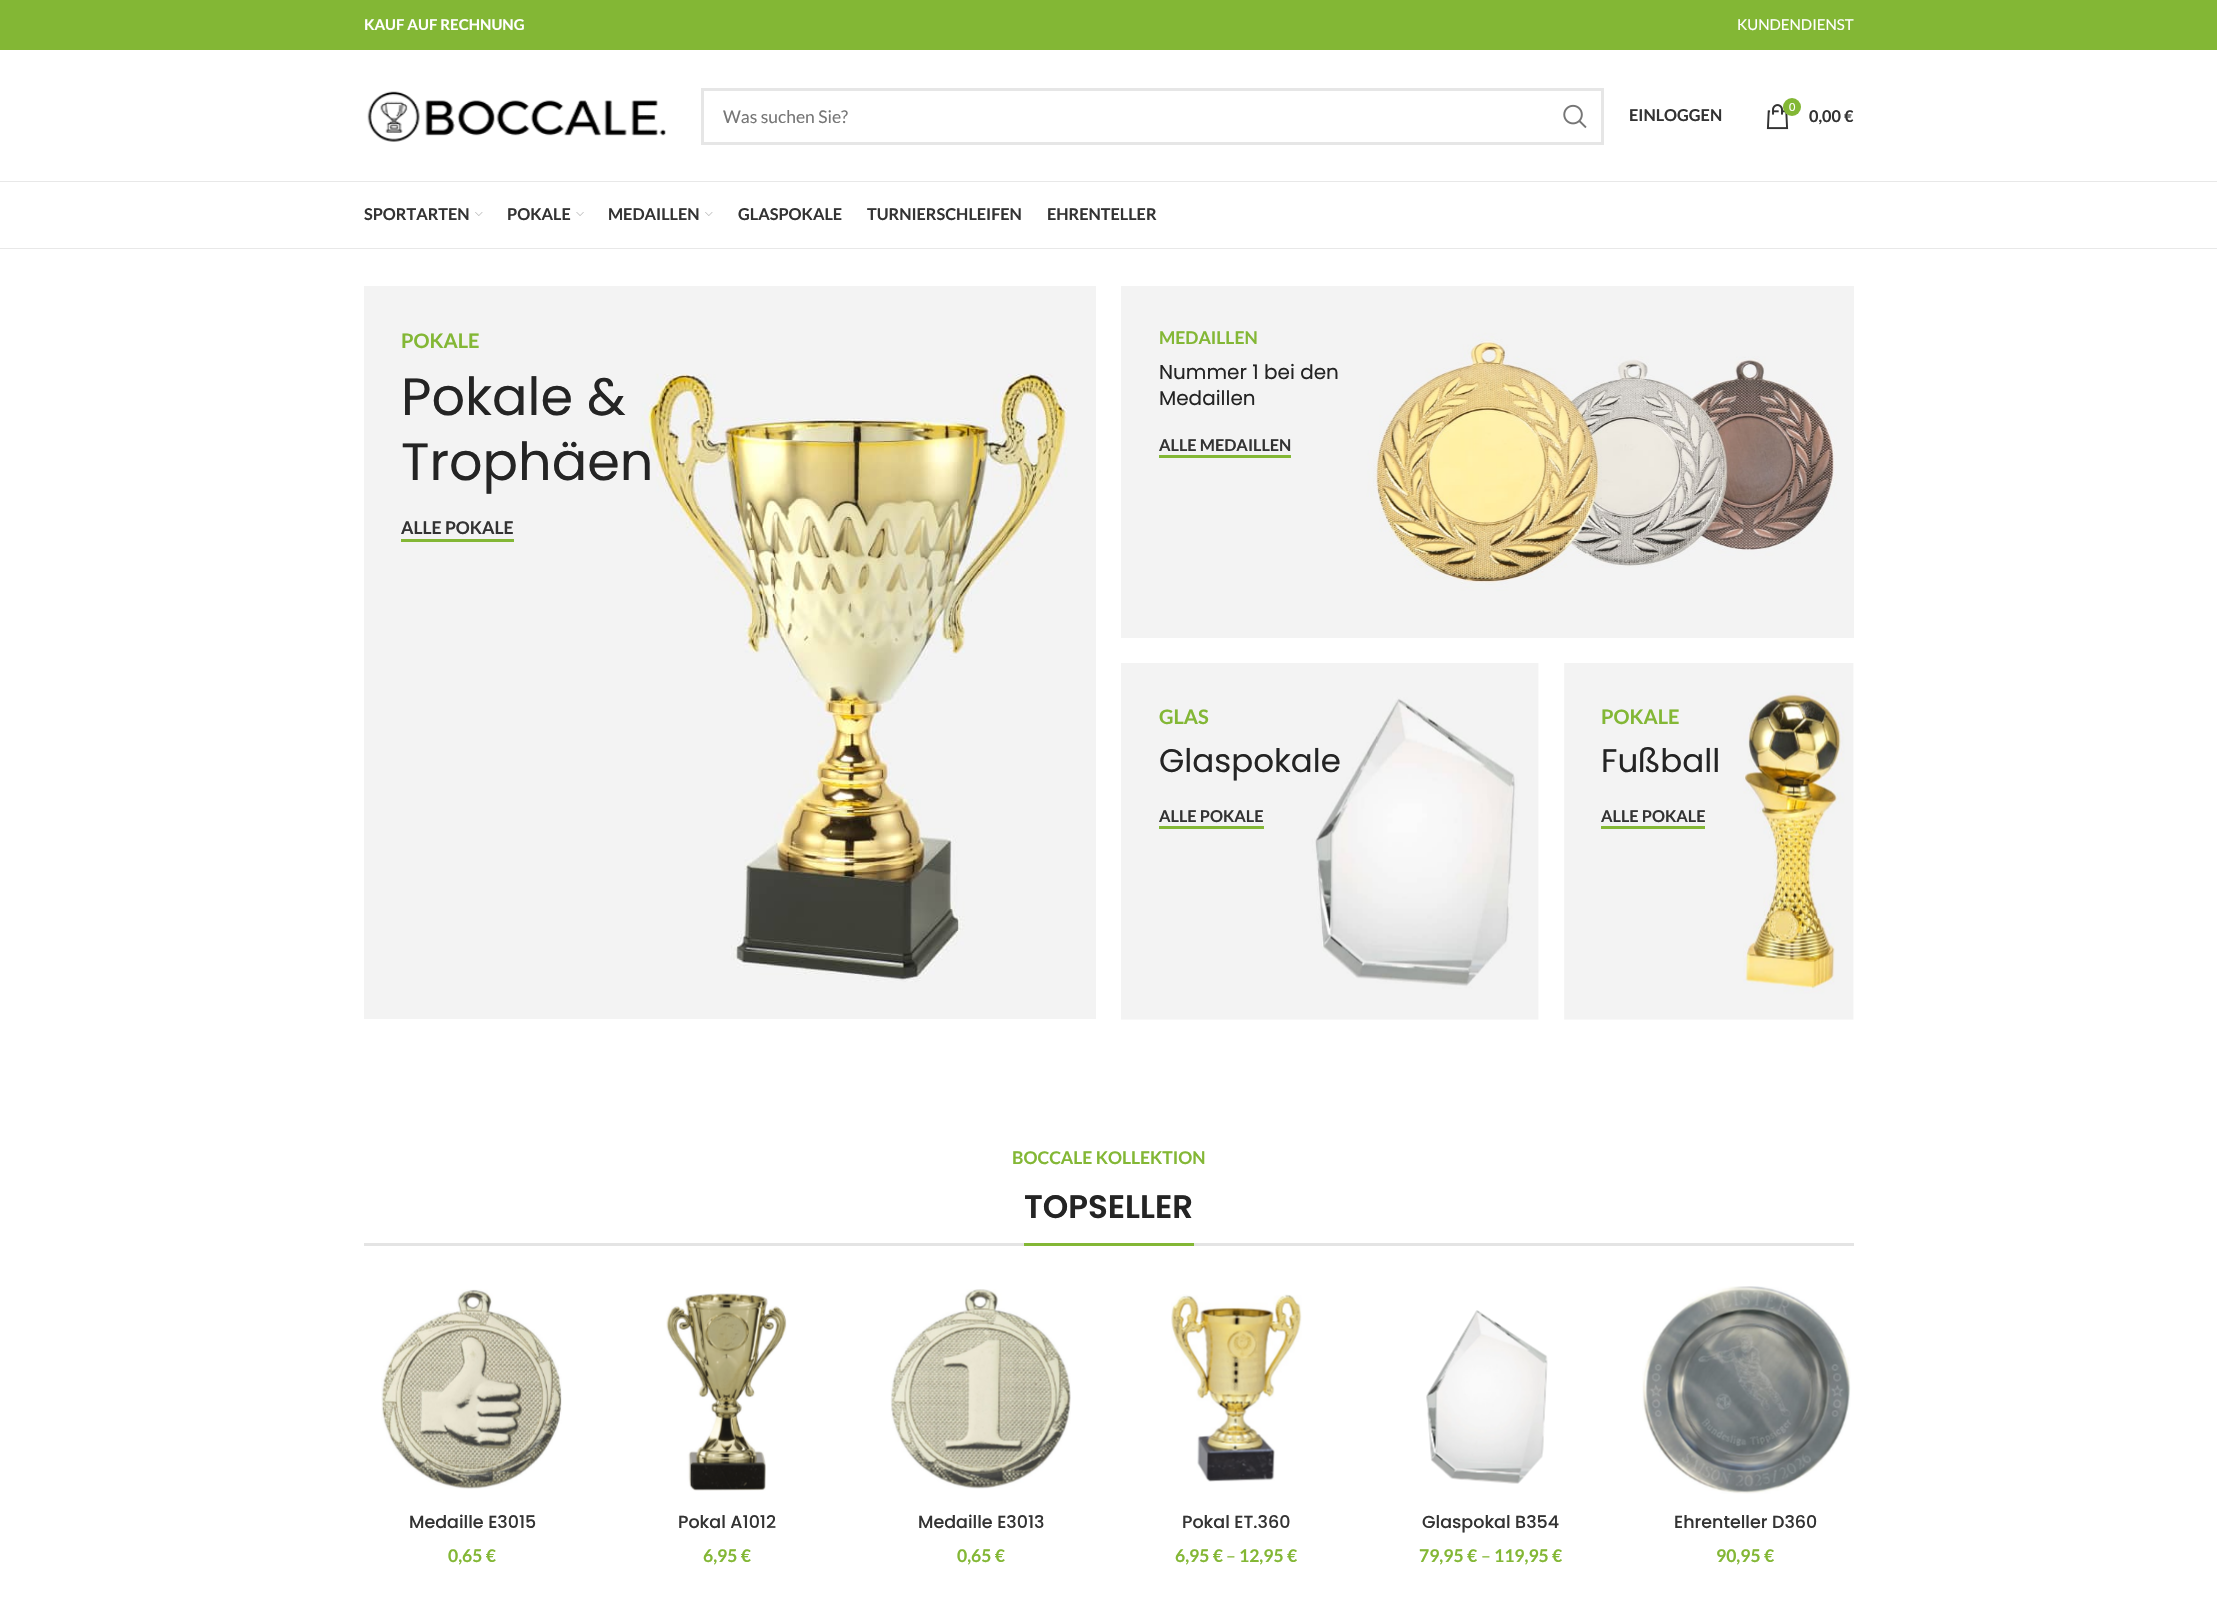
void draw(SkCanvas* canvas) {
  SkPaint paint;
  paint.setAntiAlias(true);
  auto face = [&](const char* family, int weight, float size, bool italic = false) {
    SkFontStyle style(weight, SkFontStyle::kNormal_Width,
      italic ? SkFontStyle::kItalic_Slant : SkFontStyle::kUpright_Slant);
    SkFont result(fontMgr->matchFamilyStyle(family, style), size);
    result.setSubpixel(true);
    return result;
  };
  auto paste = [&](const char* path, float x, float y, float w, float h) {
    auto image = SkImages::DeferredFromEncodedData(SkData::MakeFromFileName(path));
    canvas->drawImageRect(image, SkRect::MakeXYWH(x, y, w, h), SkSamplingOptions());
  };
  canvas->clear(0xffffffff);
  paint.setColor(0xff83b735);
  canvas->drawRect(SkRect::MakeXYWH(0, 0, 2217, 50), paint);
  paint.setColor(0xffe8e8e8);
  canvas->drawRect(SkRect::MakeXYWH(0, 181, 2217, 1), paint);
  paste("img/1.png", 367, 91, 299, 51);
  paint.setStroke(true);
  paint.setStrokeWidth(3);
  paint.setColor(0xffe6e6e6);
  canvas->drawRect(SkRect::MakeXYWH(702.5f, 89.5f, 900, 54), paint);
  paste("img/2.png", 1563, 104, 24, 25);
  paste("img/3.png", 1766, 104, 23, 26);
  paint.setStroke(false);
  paint.setColor(0xff83b735);
  canvas->drawCircle(1792, 107, 9, paint);
  paint.setColor(0xffe8e8e8);
  canvas->drawRect(SkRect::MakeXYWH(0, 248, 2217, 1), paint);
  paste("img/4.png", 475, 212, 8, 4);
  paste("img/5.png", 576, 212, 8, 4);
  paste("img/4.png", 705, 212, 8, 4);
  paste("img/6.png", 364, 286, 732, 733);
  paint.setColor(0xff83b735);
  canvas->drawRect(SkRect::MakeXYWH(401, 539, 113, 3), paint);
  paste("img/7.png", 1121, 286, 733, 352);
  canvas->drawRect(SkRect::MakeXYWH(1159, 455, 132, 3), paint);
  paste("img/8.png", 1121, 663, 418, 357);
  canvas->drawRect(SkRect::MakeXYWH(1159, 826, 105, 3), paint);
  paste("img/9.png", 1564, 663, 290, 357);
  {
    const struct { float x, y, w, h; SkColor color; } items[] = {
      {1601, 826, 104, 3, 0xff83b735},
      {364, 1243, 1490, 3, 0xffe4e4e4},
      {1024, 1243, 170, 3, 0xff83b735},
    };
    for (auto [x, y, w, h, color] : items) {
      paint.setColor(color);
      canvas->drawRect(SkRect::MakeXYWH(x, y, w, h), paint);
    }
  }
  paste("img/10.png", 381, 1289, 181, 200);
  paste("img/11.png", 666, 1293, 121, 198);
  paste("img/12.png", 890, 1289, 181, 200);
  paste("img/13.png", 1171, 1294, 131, 188);
  paste("img/14.png", 1426, 1310, 122, 174);
  paste("img/15.png", 1642, 1286, 209, 208);
  auto f0 = face("Lato", 700, 15);
  paint.setColor(0xffffffff);
  canvas->drawString("KAUF AUF RECHNUNG", 364, 30, f0, paint);
  auto f1 = face("Lato", 400, 15);
  canvas->drawString("KUNDENDIENST", 1737, 30, f1, paint);
  auto f2 = face("Lato", 400, 17.5f);
  paint.setColor(0xff767676);
  canvas->drawString("Was suchen Sie?", 723, 123, f2, paint);
  auto f3 = face("Lato", 700, 16.25f);
  paint.setColor(0xff333333);
  canvas->drawString("EINLOGGEN", 1629, 121, f3, paint);
  auto f4 = face("Lato", 400, 11);
  paint.setColor(0xffffffff);
  canvas->drawString("0", 1789, 111, f4, paint);
  paint.setColor(0xff333333);
  {
    const struct { const char* s; float x, y; } items[] = {
      {"0,00 €", 1809, 122},
      {"SPORTARTEN", 364, 220},
      {"POKALE", 507, 220},
      {"MEDAILLEN", 608, 220},
      {"GLASPOKALE", 738, 220},
      {"TURNIERSCHLEIFEN", 867, 220},
      {"EHRENTELLER", 1047, 220},
    };
    for (auto [s, x, y] : items) {
      canvas->drawString(s, x, y, f3, paint);
    }
  }
  auto f5 = face("Lato", 700, 20);
  paint.setColor(0xff83b735);
  canvas->drawString("POKALE", 401, 348, f5, paint);
  auto f6 = face("Poppins", 400, 52.5f);
  paint.setColor(0xff242424);
  canvas->drawString("Pokale &", 401, 415, f6, paint);
  canvas->drawString("Trophäen", 401, 480, f6, paint);
  auto f7 = face("Lato", 700, 17.5f);
  paint.setColor(0xff333333);
  canvas->drawString("ALLE POKALE", 401, 534, f7, paint);
  paint.setColor(0xff83b735);
  canvas->drawString("MEDAILLEN", 1159, 344, f7, paint);
  auto f8 = face("Poppins", 400, 20);
  paint.setColor(0xff242424);
  canvas->drawString("Nummer 1 bei den", 1159, 379, f8, paint);
  canvas->drawString("Medaillen", 1159, 405, f8, paint);
  paint.setColor(0xff333333);
  canvas->drawString("ALLE MEDAILLEN", 1159, 451, f3, paint);
  paint.setColor(0xff83b735);
  canvas->drawString("GLAS", 1159, 724, f5, paint);
  auto f9 = face("Poppins", 400, 32.5f);
  paint.setColor(0xff242424);
  canvas->drawString("Glaspokale", 1159, 772, f9, paint);
  paint.setColor(0xff333333);
  canvas->drawString("ALLE POKALE", 1159, 822, f3, paint);
  paint.setColor(0xff83b735);
  canvas->drawString("POKALE", 1601, 724, f5, paint);
  paint.setColor(0xff242424);
  canvas->drawString("Fußball", 1601, 772, f9, paint);
  paint.setColor(0xff333333);
  canvas->drawString("ALLE POKALE", 1601, 822, f3, paint);
  paint.setColor(0xff83b735);
  canvas->drawString("BOCCALE KOLLEKTION", 1012, 1164, f7, paint);
  auto f10 = face("Poppins", 600, 32.5f);
  paint.setColor(0xff242424);
  canvas->drawString("TOPSELLER", 1024, 1218, f10, paint);
  auto f11 = face("Poppins", 500, 17.5f);
  paint.setColor(0xff333333);
  canvas->drawString("Medaille E3015", 409, 1528, f11, paint);
  paint.setColor(0xff83b735);
  canvas->drawString("0,65 €", 448, 1562, f7, paint);
  paint.setColor(0xff333333);
  canvas->drawString("Pokal A1012", 678, 1528, f11, paint);
  paint.setColor(0xff83b735);
  canvas->drawString("6,95 €", 703, 1562, f7, paint);
  paint.setColor(0xff333333);
  canvas->drawString("Medaille E3013", 918, 1528, f11, paint);
  paint.setColor(0xff83b735);
  canvas->drawString("0,65 €", 957, 1562, f7, paint);
  paint.setColor(0xff333333);
  canvas->drawString("Pokal ET.360", 1182, 1528, f11, paint);
  paint.setColor(0xff83b735);
  canvas->drawString("6,95 €", 1175, 1562, f7, paint);
  canvas->drawString("–", 1226, 1562, f2, paint);
  canvas->drawString("12,95 €", 1239, 1562, f7, paint);
  paint.setColor(0xff333333);
  canvas->drawString("Glaspokal B354", 1422, 1528, f11, paint);
  paint.setColor(0xff83b735);
  canvas->drawString("79,95 €", 1419, 1562, f7, paint);
  canvas->drawString("–", 1481, 1562, f2, paint);
  canvas->drawString("119,95 €", 1494, 1562, f7, paint);
  paint.setColor(0xff333333);
  canvas->drawString("Ehrenteller D360", 1674, 1528, f11, paint);
  paint.setColor(0xff83b735);
  canvas->drawString("90,95 €", 1716, 1562, f7, paint);
}
